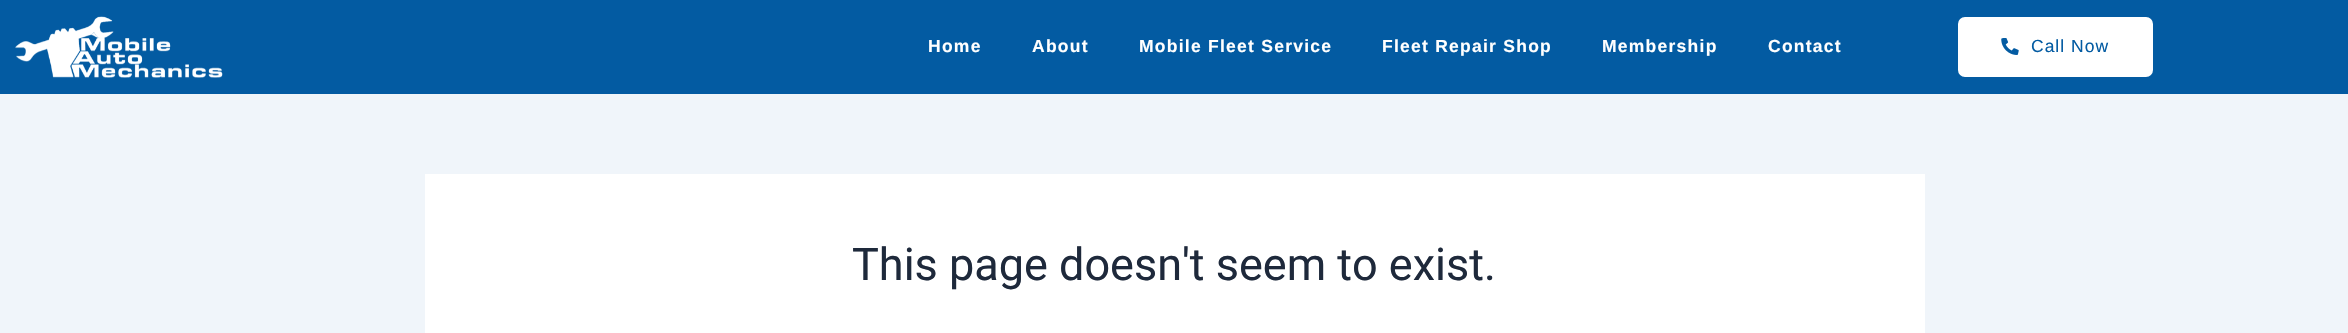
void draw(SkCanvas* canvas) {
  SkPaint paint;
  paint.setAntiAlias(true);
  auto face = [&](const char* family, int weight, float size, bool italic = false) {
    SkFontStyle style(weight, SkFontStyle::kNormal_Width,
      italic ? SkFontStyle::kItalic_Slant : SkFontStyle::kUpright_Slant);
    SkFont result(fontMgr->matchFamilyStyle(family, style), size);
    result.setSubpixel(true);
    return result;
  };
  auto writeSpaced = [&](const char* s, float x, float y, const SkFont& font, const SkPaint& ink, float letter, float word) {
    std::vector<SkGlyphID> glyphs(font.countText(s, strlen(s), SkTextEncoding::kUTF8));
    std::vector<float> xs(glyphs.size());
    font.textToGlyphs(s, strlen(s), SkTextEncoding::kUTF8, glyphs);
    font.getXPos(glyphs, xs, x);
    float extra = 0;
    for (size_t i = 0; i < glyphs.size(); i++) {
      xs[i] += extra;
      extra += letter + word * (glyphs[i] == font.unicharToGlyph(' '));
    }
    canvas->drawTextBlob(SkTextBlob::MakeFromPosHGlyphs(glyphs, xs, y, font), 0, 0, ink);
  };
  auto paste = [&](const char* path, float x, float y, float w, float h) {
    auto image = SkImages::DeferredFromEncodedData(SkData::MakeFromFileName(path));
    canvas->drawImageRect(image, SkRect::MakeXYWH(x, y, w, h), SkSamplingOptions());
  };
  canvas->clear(0xfff0f5fa);
  paint.setColor(0xff035ba2);
  canvas->drawRect(SkRect::MakeXYWH(0, 0, 2348, 94), paint);
  paste("img/1.png", 15, 16, 208, 62);
  paint.setColor(0xffffffff);
  canvas->drawRoundRect(SkRect::MakeXYWH(1956.5f, 15.5f, 198, 63), 8.5f, 8.5f, paint);
  paint.setStroke(true);
  paint.setStrokeWidth(3);
  paint.setColor(0xff035ba2);
  canvas->drawRoundRect(SkRect::MakeXYWH(1956.5f, 15.5f, 198, 63), 8.5f, 8.5f, paint);
  paste("img/2.png", 2001, 38, 18, 17);
  paint.setStroke(false);
  paint.setColor(0xffffffff);
  canvas->drawRect(SkRect::MakeXYWH(425, 174, 1500, 159), paint);
  auto f0 = face("Liberation Sans", 700, 17.5f);
  {
    const struct { const char* s; float x, y; } items[] = {
      {"Home", 928, 52},
      {"About", 1032, 52},
      {"Mobile Fleet Service", 1139, 52},
      {"Fleet Repair Shop", 1382, 52},
      {"Membership", 1602, 52},
      {"Contact", 1768, 52},
    };
    for (auto [s, x, y] : items) {
      writeSpaced(s, x, y, f0, paint, 1.25f, 0);
    }
  }
  auto f1 = face("Liberation Sans", 400, 17.5f);
  paint.setColor(0xff035ba2);
  writeSpaced("Call Now", 2031, 52, f1, paint, 1, 0);
  auto f2 = face("Roboto", 400, 45);
  paint.setColor(0xff1e293b);
  canvas->drawString("This page doesn't seem to exist.", 852, 280, f2, paint);
}
